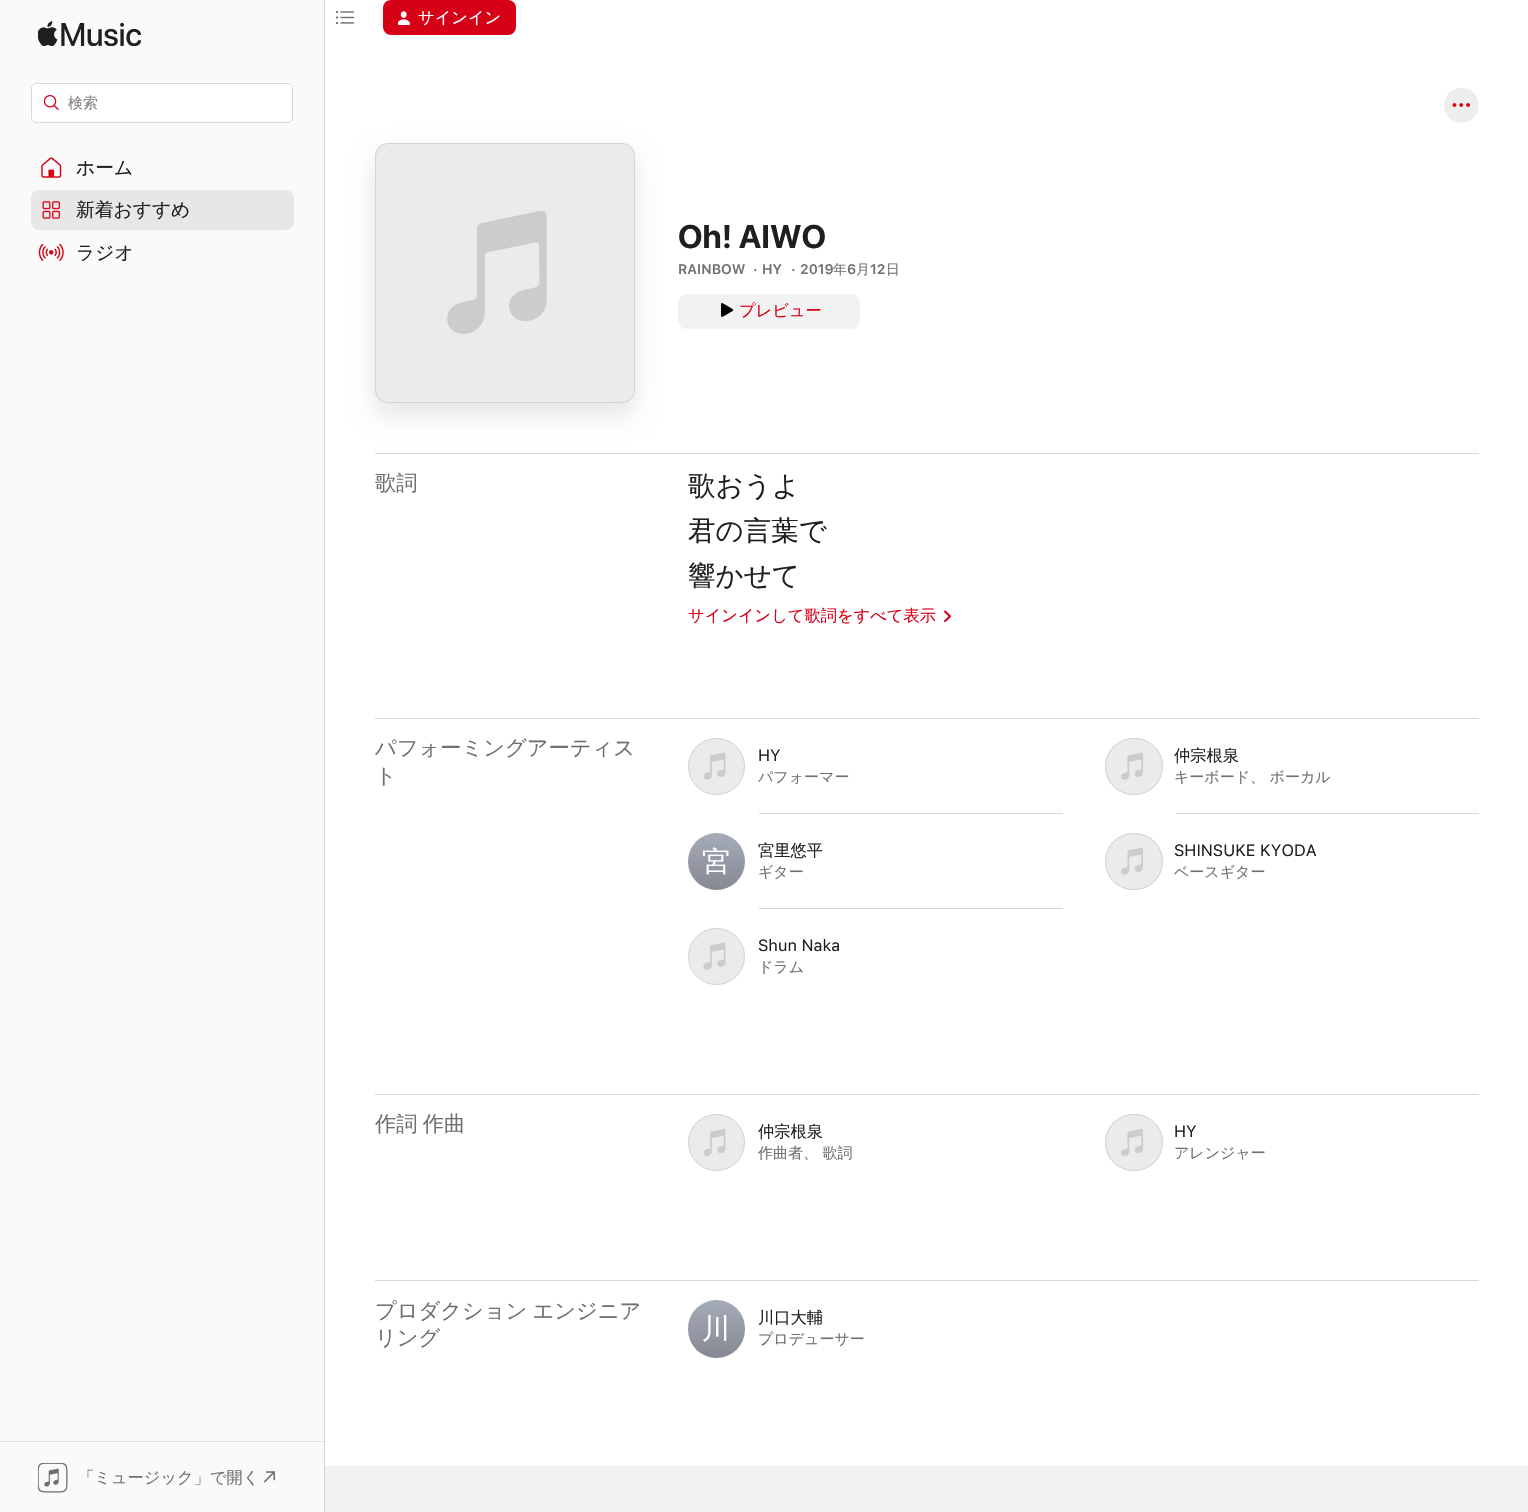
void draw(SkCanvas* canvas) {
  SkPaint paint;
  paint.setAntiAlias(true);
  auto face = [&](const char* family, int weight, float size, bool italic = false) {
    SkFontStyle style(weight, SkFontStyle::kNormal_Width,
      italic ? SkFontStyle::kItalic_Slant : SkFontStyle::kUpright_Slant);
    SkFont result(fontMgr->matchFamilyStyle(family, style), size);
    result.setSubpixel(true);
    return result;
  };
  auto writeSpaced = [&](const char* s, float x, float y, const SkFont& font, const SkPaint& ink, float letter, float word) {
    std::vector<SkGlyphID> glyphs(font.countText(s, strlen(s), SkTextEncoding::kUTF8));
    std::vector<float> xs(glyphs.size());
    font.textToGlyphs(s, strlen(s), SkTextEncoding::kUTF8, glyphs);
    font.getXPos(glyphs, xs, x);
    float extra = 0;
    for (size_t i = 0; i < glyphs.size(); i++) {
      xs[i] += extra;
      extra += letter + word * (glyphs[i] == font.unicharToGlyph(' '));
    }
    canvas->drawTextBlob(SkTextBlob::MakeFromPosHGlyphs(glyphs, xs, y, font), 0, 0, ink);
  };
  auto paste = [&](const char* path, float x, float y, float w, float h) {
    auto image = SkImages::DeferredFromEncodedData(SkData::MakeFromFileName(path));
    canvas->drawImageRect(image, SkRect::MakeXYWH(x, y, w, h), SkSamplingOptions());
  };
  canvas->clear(0xffffffff);
  paste("img/1.png", 335, 11, 20, 13);
  paint.setColor(0xffd60017);
  canvas->drawRoundRect(SkRect::MakeXYWH(383, 0, 133, 35), 8, 8, paint);
  paste("img/2.png", 398, 11, 12, 14);
  {
    const struct { float x, y, w, h; SkColor color; } items[] = {
      {0, 0, 324, 1512, 0xfffafafa},
      {0, 1441, 325, 1, 0xffe1e1e1},
      {324, 0, 1, 1512, 0xffd5d5d5},
      {324, 1441, 1, 1, 0xffc0c0c0},
    };
    for (auto [x, y, w, h, color] : items) {
      paint.setColor(color);
      canvas->drawRect(SkRect::MakeXYWH(x, y, w, h), paint);
    }
  }
  paste("img/3.png", 38, 21, 103, 25);
  paint.setColor(0xffffffff);
  canvas->drawRoundRect(SkRect::MakeXYWH(31.5f, 83.5f, 261, 39), 4.5f, 4.5f, paint);
  paint.setStroke(true);
  paint.setStrokeWidth(1);
  paint.setColor(0xffd9d9d9);
  canvas->drawRoundRect(SkRect::MakeXYWH(31.5f, 83.5f, 261, 39), 4.5f, 4.5f, paint);
  paste("img/4.png", 44, 95, 15, 15);
  paste("img/5.png", 41, 157, 21, 21);
  paint.setStroke(false);
  paint.setColor(0xffe7e7e8);
  canvas->drawRoundRect(SkRect::MakeXYWH(31, 190, 263, 40), 8, 8, paint);
  paste("img/6.png", 42, 201, 18, 18);
  paste("img/7.png", 38, 243, 26, 18);
  paste("img/8.png", 38, 1463, 30, 30);
  paste("img/9.png", 264, 1471, 11, 12);
  paint.setColor(0xfffafafa);
  canvas->drawCircle(1461.5f, 105.5f, 17.5f, paint);
  paste("img/10.png", 1444, 88, 35, 35);
  paint.setColor(0xffd9d9d9);
  canvas->drawRect(SkRect::MakeXYWH(375, 453, 1104, 1), paint);
  paint.setColor(0x1a000000);
  paint.setMaskFilter(SkMaskFilter::MakeBlur(kNormal_SkBlurStyle, 12.5f));
  canvas->drawRoundRect(SkRect::MakeXYWH(375, 155, 260, 260), 13, 13, paint);
  paint.setMaskFilter(nullptr);
  paint.setColor(0xffebebeb);
  canvas->drawRoundRect(SkRect::MakeXYWH(375, 143, 260, 260), 13, 13, paint);
  paste("img/11.png", 375, 143, 260, 191);
  paint.setStroke(true);
  paint.setColor(0x1a000000);
  canvas->drawRoundRect(SkRect::MakeXYWH(375.5f, 143.5f, 259, 259), 12.5f, 12.5f, paint);
  paint.setStroke(false);
  paint.setColor(0xfff2f2f2);
  canvas->drawRoundRect(SkRect::MakeXYWH(678, 294, 182, 35), 9, 9, paint);
  paste("img/12.png", 721, 303, 13, 14);
  paste("img/13.png", 944, 610, 7, 13);
  paint.setColor(0xffd9d9d9);
  canvas->drawRect(SkRect::MakeXYWH(375, 718, 1104, 1), paint);
  paste("img/14.png", 688, 738, 57, 57);
  paint.setStroke(true);
  paint.setColor(0x1a000000);
  canvas->drawCircle(716.5f, 766.5f, 28, paint);
  paint.setStroke(false);
  paint.setColor(0xffd9d9d9);
  canvas->drawRect(SkRect::MakeXYWH(759, 813, 304, 1), paint);
  paint.setColor(0xffebebeb);
  canvas->drawRoundRect(SkRect::MakeXYWH(1105, 738, 58, 57), 28.5f, 28.5f, paint);
  paste("img/15.png", 1105, 738, 57, 57);
  paint.setStroke(true);
  paint.setColor(0x1a000000);
  canvas->drawRoundRect(SkRect::MakeXYWH(1105.5f, 738.5f, 57, 56), 28, 28, paint);
  paint.setStroke(false);
  paint.setColor(0xffd9d9d9);
  canvas->drawRect(SkRect::MakeXYWH(1176, 813, 303, 1), paint);
  {
    const SkColor colors[] = {0xffa5abb8, 0xff848993};
    const float stops[] = {0, 1};
    const SkPoint ends[] = {{716, 833}, {716, 890}};
    paint.setShader(SkGradientShader::MakeLinear(ends, colors, stops, 2, SkTileMode::kClamp));
    paint.setAlpha(255);
  }
  canvas->drawCircle(716.5f, 861.5f, 28.5f, paint);
  paint.setShader(nullptr);
  paint.setColor(0xffd9d9d9);
  canvas->drawRect(SkRect::MakeXYWH(759, 908, 304, 1), paint);
  paint.setColor(0xffebebeb);
  canvas->drawRoundRect(SkRect::MakeXYWH(1105, 833, 58, 57), 28.5f, 28.5f, paint);
  paste("img/15.png", 1105, 833, 57, 57);
  paint.setStroke(true);
  paint.setColor(0x1a000000);
  canvas->drawRoundRect(SkRect::MakeXYWH(1105.5f, 833.5f, 57, 56), 28, 28, paint);
  paste("img/14.png", 688, 928, 57, 57);
  canvas->drawCircle(716.5f, 956.5f, 28, paint);
  paint.setStroke(false);
  paint.setColor(0xffd9d9d9);
  canvas->drawRect(SkRect::MakeXYWH(375, 1094, 1104, 1), paint);
  paste("img/16.png", 688, 1114, 57, 57);
  paint.setStroke(true);
  paint.setColor(0x1a000000);
  canvas->drawCircle(716.5f, 1142.5f, 28, paint);
  paint.setStroke(false);
  paint.setColor(0xffebebeb);
  canvas->drawRoundRect(SkRect::MakeXYWH(1105, 1114, 58, 57), 28.5f, 28.5f, paint);
  paste("img/17.png", 1105, 1114, 57, 57);
  paint.setStroke(true);
  paint.setColor(0x1a000000);
  canvas->drawRoundRect(SkRect::MakeXYWH(1105.5f, 1114.5f, 57, 56), 28, 28, paint);
  paint.setStroke(false);
  paint.setColor(0xffd9d9d9);
  canvas->drawRect(SkRect::MakeXYWH(375, 1280, 1104, 1), paint);
  {
    const SkColor colors[] = {0xffa5abb8, 0xff848993};
    const float stops[] = {0, 1};
    const SkPoint ends[] = {{716, 1300}, {716, 1358}};
    paint.setShader(SkGradientShader::MakeLinear(ends, colors, stops, 2, SkTileMode::kClamp));
    paint.setAlpha(255);
  }
  canvas->drawRoundRect(SkRect::MakeXYWH(688, 1300, 57, 58), 28.5f, 28.5f, paint);
  paint.setShader(nullptr);
  paint.setColor(0xfff2f2f2);
  canvas->drawRect(SkRect::MakeXYWH(325, 1466, 1203, 46), paint);
  auto f0 = face("WenQuanYi Zen Hei", 500, 16.25f);
  paint.setColor(0xffffffff);
  canvas->drawString("サインイン", 418, 23, f0, paint);
  auto f1 = face("WenQuanYi Zen Hei", 500, 15);
  paint.setColor(0xff858585);
  canvas->drawString("検索", 68, 108, f1, paint);
  auto f2 = face("WenQuanYi Zen Hei", 500, 18.75f);
  paint.setColor(0xff1f1f1f);
  {
    const struct { const char* s; float x, y; } items[] = {
      {"ホーム", 76, 174},
      {"新着おすすめ", 76, 216},
      {"ラジオ", 76, 259},
    };
    for (auto [s, x, y] : items) {
      canvas->drawString(s, x, y, f2, paint);
    }
  }
  paint.setColor(0xff707070);
  canvas->drawString("「ミュージック」で開く", 78, 1483, f0, paint);
  auto f3 = face("SF", 700, 32.5f);
  paint.setColor(0xff1f1f1f);
  canvas->drawString("Oh! AIWO", 678, 248, f3, paint);
  auto f4 = face("SF", 600, 13.75f);
  paint.setColor(0xff707070);
  {
    const struct { const char* s; float x, y; } items[] = {
      {"RAINBOW", 678, 274},
      {"·", 753, 274},
      {"HY", 762, 274},
      {"·", 791, 274},
      {"2019", 800, 274},
    };
    for (auto [s, x, y] : items) {
      canvas->drawString(s, x, y, f4, paint);
    }
  }
  auto f5 = face("WenQuanYi Zen Hei", 500, 13.75f);
  canvas->drawString("年", 833, 274, f5, paint);
  canvas->drawString("6", 847, 274, f4, paint);
  canvas->drawString("月", 856, 274, f5, paint);
  canvas->drawString("12", 870, 274, f4, paint);
  canvas->drawString("日", 886, 274, f5, paint);
  paint.setColor(0xffd60017);
  canvas->drawString("プレビュー", 739, 316, f0, paint);
  auto f6 = face("WenQuanYi Zen Hei", 500, 21.25f);
  paint.setColor(0xff707070);
  canvas->drawString("歌詞", 375, 490, f6, paint);
  auto f7 = face("WenQuanYi Zen Hei", 500, 27.5f);
  paint.setColor(0xff1f1f1f);
  {
    const struct { const char* s; float x, y; } items[] = {
      {"歌おうよ", 688, 495},
      {"君の言葉で", 688, 540},
      {"響かせて", 688, 585},
    };
    for (auto [s, x, y] : items) {
      canvas->drawString(s, x, y, f7, paint);
    }
  }
  paint.setColor(0xffd60017);
  canvas->drawString("サインインして歌詞をすべて表示", 688, 621, f0, paint);
  paint.setColor(0xff707070);
  canvas->drawString("パフォーミングアーティス", 375, 755, f6, paint);
  canvas->drawString("ト", 375, 783, f6, paint);
  auto f8 = face("SF", 400, 16.25f);
  paint.setColor(0xff1f1f1f);
  canvas->drawString("HY", 758, 761, f8, paint);
  paint.setColor(0xff707070);
  canvas->drawString("パフォーマー", 758, 782, f1, paint);
  paint.setColor(0xff1f1f1f);
  canvas->drawString("仲宗根泉", 1174, 761, f0, paint);
  paint.setColor(0xff707070);
  canvas->drawString("キーボード、 ボーカル", 1174, 782, f1, paint);
  auto f9 = face("WenQuanYi Zen Hei", 500, 28);
  paint.setColor(0xffffffff);
  canvas->drawString("宮", 702, 871, f9, paint);
  paint.setColor(0xff1f1f1f);
  canvas->drawString("宮里悠平", 758, 856, f0, paint);
  paint.setColor(0xff707070);
  canvas->drawString("ギター", 758, 877, f1, paint);
  paint.setColor(0xff1f1f1f);
  canvas->drawString("SHINSUKE KYODA", 1174, 856, f8, paint);
  paint.setColor(0xff707070);
  canvas->drawString("ベースギター", 1174, 877, f1, paint);
  paint.setColor(0xff1f1f1f);
  canvas->drawString("Shun Naka", 758, 951, f8, paint);
  paint.setColor(0xff707070);
  canvas->drawString("ドラム", 758, 972, f1, paint);
  writeSpaced("作詞 作曲", 375, 1131, f6, paint, 0, -1);
  paint.setColor(0xff1f1f1f);
  canvas->drawString("仲宗根泉", 758, 1137, f0, paint);
  paint.setColor(0xff707070);
  canvas->drawString("作曲者、 歌詞", 758, 1158, f1, paint);
  paint.setColor(0xff1f1f1f);
  canvas->drawString("HY", 1174, 1137, f8, paint);
  paint.setColor(0xff707070);
  canvas->drawString("アレンジャー", 1174, 1158, f1, paint);
  writeSpaced("プロダクション エンジニア", 375, 1318, f6, paint, 0, -1);
  canvas->drawString("リング", 375, 1345, f6, paint);
  paint.setColor(0xffffffff);
  canvas->drawString("川", 702, 1338, f9, paint);
  paint.setColor(0xff1f1f1f);
  canvas->drawString("川口大輔", 758, 1323, f0, paint);
  paint.setColor(0xff707070);
  canvas->drawString("プロデューサー", 758, 1344, f1, paint);
}
